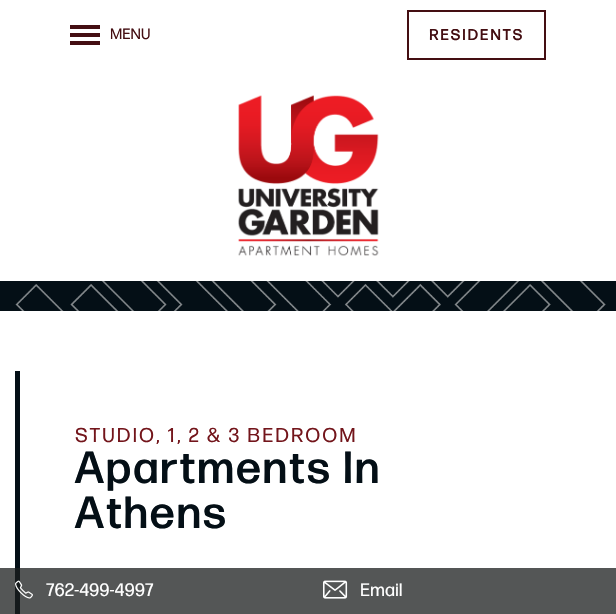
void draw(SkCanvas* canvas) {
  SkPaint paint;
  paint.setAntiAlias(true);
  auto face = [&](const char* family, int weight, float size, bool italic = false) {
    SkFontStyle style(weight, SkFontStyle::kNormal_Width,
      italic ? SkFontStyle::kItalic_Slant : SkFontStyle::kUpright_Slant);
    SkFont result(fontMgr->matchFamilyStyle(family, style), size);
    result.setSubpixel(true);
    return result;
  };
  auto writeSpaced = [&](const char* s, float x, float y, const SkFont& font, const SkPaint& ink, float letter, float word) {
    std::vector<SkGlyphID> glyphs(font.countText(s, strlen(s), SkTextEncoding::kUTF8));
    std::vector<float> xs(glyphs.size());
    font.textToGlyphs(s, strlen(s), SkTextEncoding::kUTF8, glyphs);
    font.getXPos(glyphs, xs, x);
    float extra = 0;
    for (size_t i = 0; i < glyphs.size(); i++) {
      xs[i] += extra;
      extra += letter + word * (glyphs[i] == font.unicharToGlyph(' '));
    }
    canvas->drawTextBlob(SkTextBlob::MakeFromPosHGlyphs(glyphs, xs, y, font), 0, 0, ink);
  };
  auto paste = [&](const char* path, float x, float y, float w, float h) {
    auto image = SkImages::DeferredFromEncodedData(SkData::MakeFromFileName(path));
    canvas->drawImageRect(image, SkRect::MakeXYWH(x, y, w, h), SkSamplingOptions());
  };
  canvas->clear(0xffffffff);
  {
    const struct { float x, y, w, h; SkColor color; } items[] = {
      {70, 25, 30, 4, 0xff440e12},
      {70, 33, 30, 4, 0xff440e12},
      {70, 41, 30, 4, 0xff440e12},
    };
    for (auto [x, y, w, h, color] : items) {
      paint.setColor(color);
      canvas->drawRect(SkRect::MakeXYWH(x, y, w, h), paint);
    }
  }
  paint.setStroke(true);
  paint.setStrokeWidth(2);
  canvas->drawRect(SkRect::MakeXYWH(408, 11, 137, 48), paint);
  paste("img/1.png", 238, 95, 141, 161);
  paint.setStroke(false);
  paint.setColor(0xff040f16);
  canvas->drawRect(SkRect::MakeXYWH(0, 281, 616, 30), paint);
  paste("img/2.png", 15, 281, 591, 30);
  canvas->drawRect(SkRect::MakeXYWH(15, 371, 5, 243), paint);
  paint.setColor(0xbf1b1d1d);
  canvas->drawRect(SkRect::MakeXYWH(0, 568, 616, 46), paint);
  paste("img/3.png", 15, 580, 18, 19);
  paste("img/4.png", 323, 580, 25, 19);
  auto f0 = face("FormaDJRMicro", 400, 15);
  paint.setColor(0xff440e12);
  canvas->drawString("MENU", 110, 39, f0, paint);
  auto f1 = face("FormaDJRMicro", 700, 15);
  writeSpaced("RESIDENTS", 429, 40, f1, paint, 2, 0);
  auto f2 = face("FormaDJRMicro", 400, 20);
  paint.setColor(0xff73151b);
  writeSpaced("STUDIO, 1, 2 & 3 BEDROOM", 75, 442, f2, paint, 2, 0);
  auto f3 = face("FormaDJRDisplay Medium", 500, 45);
  paint.setColor(0xff040f16);
  writeSpaced("Apartments In", 75, 483, f3, paint, 3, 0);
  writeSpaced("Athens", 75, 528, f3, paint, 3, 0);
  auto f4 = face("FormaDJRMicro", 400, 18);
  paint.setColor(0xffffffff);
  canvas->drawString("762-499-4997", 46, 596, f4, paint);
  canvas->drawString("Email", 360, 596, f4, paint);
}
